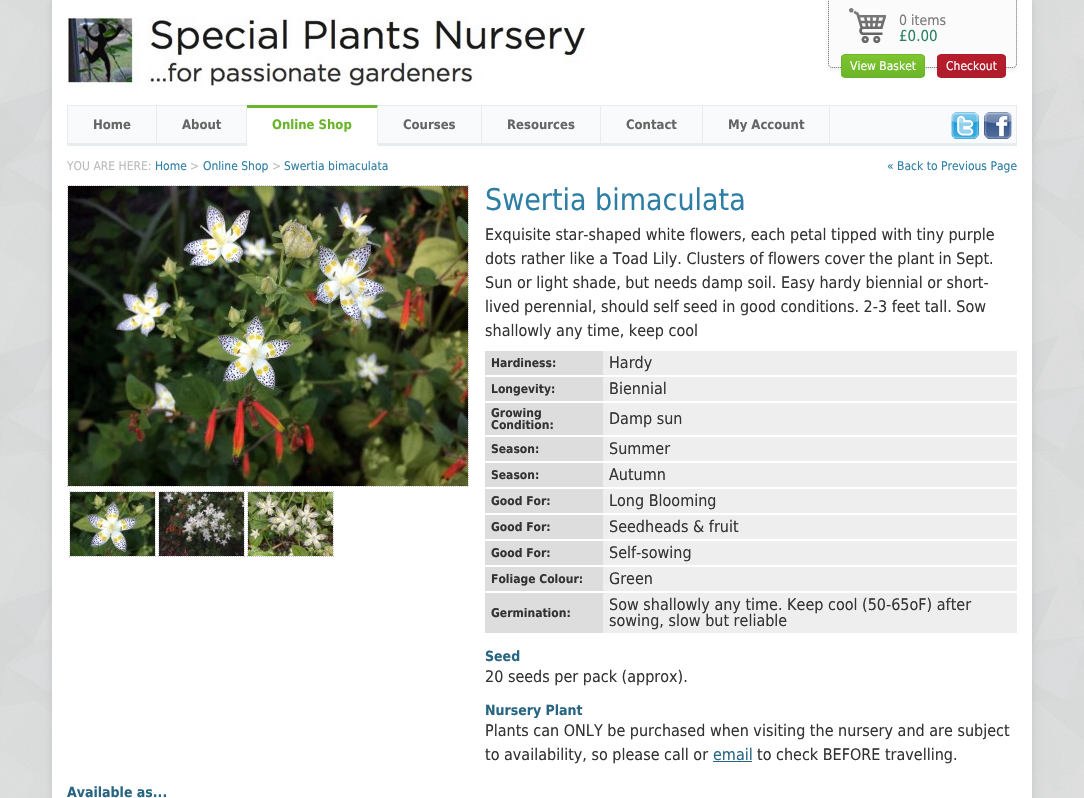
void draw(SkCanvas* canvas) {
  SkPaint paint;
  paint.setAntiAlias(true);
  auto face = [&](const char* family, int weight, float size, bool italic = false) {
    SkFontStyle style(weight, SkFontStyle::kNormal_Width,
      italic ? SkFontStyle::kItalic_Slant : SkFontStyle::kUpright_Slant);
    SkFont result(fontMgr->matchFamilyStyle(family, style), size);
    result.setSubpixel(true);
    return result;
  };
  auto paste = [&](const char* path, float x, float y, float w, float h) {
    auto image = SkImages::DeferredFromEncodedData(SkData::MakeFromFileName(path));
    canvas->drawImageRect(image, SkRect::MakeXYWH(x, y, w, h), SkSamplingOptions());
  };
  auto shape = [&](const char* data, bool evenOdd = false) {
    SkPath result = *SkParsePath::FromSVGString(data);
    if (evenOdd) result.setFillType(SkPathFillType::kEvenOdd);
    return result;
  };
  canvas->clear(0xffffffff);
  paste("img/1.png", 0, 0, 1084, 798);
  paint.setColor(0x1a000000);
  paint.setMaskFilter(SkMaskFilter::MakeBlur(kNormal_SkBlurStyle, 4));
  canvas->drawRect(SkRect::MakeXYWH(52, 0, 980, 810), paint);
  paint.setMaskFilter(nullptr);
  paint.setColor(0xffffffff);
  canvas->drawRect(SkRect::MakeXYWH(52, 0, 980, 798), paint);
  paste("img/2.png", 67, 17, 520, 70);
  paint.setColor(0x0d000000);
  paint.setMaskFilter(SkMaskFilter::MakeBlur(kNormal_SkBlurStyle, 1.5f));
  canvas->drawRoundRect(SkRect::MakeXYWH(828, -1, 189, 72), 4, 4, paint);
  paint.setMaskFilter(nullptr);
  paint.setColor(0xfffbfbfb);
  canvas->drawPath(shape("M828 0H1017V64C1017 66 1015 68 1013 68H832C830 68 828 66 828 64Z"), paint);
  paste("img/3.png", 849, 8, 37, 35);
  paint.setStroke(true);
  paint.setStrokeWidth(1);
  paint.setColor(0xff666666);
  paint.setPathEffect(SkDashPathEffect::Make({{1, 1}}, 0));
  canvas->drawPath(shape("M832-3.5H1013C1015-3.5 1016.5-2 1016.5 0V64C1016.5 66 1015 67.5 1013 67.5H832C830 67.5 828.5 66 828.5 64V0C828.5-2 830-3.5 832-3.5Z"), paint);
  paint.setPathEffect(nullptr);
  canvas->save();
  canvas->clipPath(shape("M845 54H921C923 54 925 56 925 58V74C925 76 923 78 921 78H845C843 78 841 76 841 74V58C841 56 843 54 845 54Z"), true);
  paint.setStroke(false);
  {
    const SkColor colors[] = {0xff7ec52e, 0xff6ab52a};
    const float stops[] = {0, 1};
    const SkPoint ends[] = {{883, 55}, {883, 77}};
    paint.setShader(SkGradientShader::MakeLinear(ends, colors, stops, 2, SkTileMode::kClamp));
    paint.setAlpha(255);
  }
  canvas->drawRect(SkRect::MakeXYWH(841, 55, 84, 22), paint);
  canvas->restore();
  paint.setStroke(true);
  paint.setShader(nullptr);
  paint.setColor(0xff6ab52a);
  canvas->drawRoundRect(SkRect::MakeXYWH(841.5f, 54.5f, 83, 23), 3.5f, 3.5f, paint);
  canvas->save();
  canvas->clipPath(shape("M941 54H1002C1004 54 1006 56 1006 58V74C1006 76 1004 78 1002 78H941C939 78 937 76 937 74V58C937 56 939 54 941 54Z"), true);
  paint.setStroke(false);
  {
    const SkColor colors[] = {0xffb71d2c, 0xffae1c2c};
    const float stops[] = {0, 1};
    const SkPoint ends[] = {{972, 55}, {972, 77}};
    paint.setShader(SkGradientShader::MakeLinear(ends, colors, stops, 2, SkTileMode::kClamp));
    paint.setAlpha(255);
  }
  canvas->drawRect(SkRect::MakeXYWH(937, 55, 69, 22), paint);
  canvas->restore();
  paint.setStroke(true);
  paint.setShader(nullptr);
  paint.setColor(0xffae1c2c);
  canvas->drawRoundRect(SkRect::MakeXYWH(937.5f, 54.5f, 68, 23), 3.5f, 3.5f, paint);
  paint.setStroke(false);
  {
    const struct { float x, y, w, h; SkColor color; } items[] = {
      {68, 106, 948, 37, 0xfff8fafb},
      {67, 105, 950, 1, 0xffe7ecee},
      {1016, 105, 1, 41, 0xffe7ecee},
      {67, 143, 950, 3, 0xffe7ecee},
      {67, 105, 1, 41, 0xffe7ecee},
    };
    for (auto [x, y, w, h, color] : items) {
      paint.setColor(color);
      canvas->drawRect(SkRect::MakeXYWH(x, y, w, h), paint);
    }
  }
  canvas->drawPath(shape("M157 105V145H156V108Z"), paint);
  canvas->drawPath(shape("M247 105V145H246V108Z"), paint);
  paint.setColor(0xffffffff);
  canvas->drawRect(SkRect::MakeXYWH(247, 105, 131, 40), paint);
  paint.setColor(0xff69b429);
  canvas->drawPath(shape("M247 105H378L377 108H247Z"), paint);
  paint.setColor(0xffe7ecee);
  canvas->drawPath(shape("M378 105V146L377 145V108Z"), paint);
  paint.setColor(0xffffffff);
  canvas->drawRect(SkRect::MakeXYWH(247, 145, 131, 1), paint);
  paint.setColor(0xffe7ecee);
  canvas->drawPath(shape("M482 105V145H481V108Z"), paint);
  canvas->drawPath(shape("M601 105V145H600V108Z"), paint);
  canvas->drawPath(shape("M703 105V145H702V108Z"), paint);
  canvas->drawPath(shape("M830 105V145H829V108Z"), paint);
  paste("img/4.png", 951, 112, 28, 27);
  paste("img/5.png", 984, 112, 28, 27);
  paint.setStroke(true);
  paint.setColor(0xffcccccc);
  paint.setPathEffect(SkDashPathEffect::Make({{1, 1}}, 0));
  canvas->drawPath(shape("M67 185.5H469"), paint);
  paint.setPathEffect(nullptr);
  paint.setPathEffect(SkDashPathEffect::Make({{1, 1}}, 0));
  canvas->drawPath(shape("M468.5 185V487"), paint);
  paint.setPathEffect(nullptr);
  paint.setPathEffect(SkDashPathEffect::Make({{1, 1}}, 0));
  canvas->drawPath(shape("M67 486.5H469"), paint);
  paint.setPathEffect(nullptr);
  paint.setPathEffect(SkDashPathEffect::Make({{1, 1}}, 0));
  canvas->drawPath(shape("M67.5 185V487"), paint);
  paint.setPathEffect(nullptr);
  paste("img/6.png", 68, 186, 400, 300);
  paint.setPathEffect(SkDashPathEffect::Make({{1, 1}}, 0));
  canvas->drawPath(shape("M69 491.5H156"), paint);
  paint.setPathEffect(nullptr);
  paint.setPathEffect(SkDashPathEffect::Make({{1, 1}}, 0));
  canvas->drawPath(shape("M69.5 491V557"), paint);
  paint.setPathEffect(nullptr);
  paste("img/7.png", 70, 492, 85, 64);
  paint.setPathEffect(SkDashPathEffect::Make({{1, 1}}, 0));
  canvas->drawPath(shape("M155.5 491V557"), paint);
  paint.setPathEffect(nullptr);
  paint.setPathEffect(SkDashPathEffect::Make({{1, 1}}, 0));
  canvas->drawPath(shape("M69 556.5H156"), paint);
  paint.setPathEffect(nullptr);
  paint.setPathEffect(SkDashPathEffect::Make({{1, 1}}, 0));
  canvas->drawPath(shape("M158 491.5H245"), paint);
  paint.setPathEffect(nullptr);
  paint.setPathEffect(SkDashPathEffect::Make({{1, 1}}, 0));
  canvas->drawPath(shape("M158.5 491V557"), paint);
  paint.setPathEffect(nullptr);
  paste("img/8.png", 159, 492, 85, 64);
  paint.setPathEffect(SkDashPathEffect::Make({{1, 1}}, 0));
  canvas->drawPath(shape("M244.5 491V557"), paint);
  paint.setPathEffect(nullptr);
  paint.setPathEffect(SkDashPathEffect::Make({{1, 1}}, 0));
  canvas->drawPath(shape("M158 556.5H245"), paint);
  paint.setPathEffect(nullptr);
  paint.setPathEffect(SkDashPathEffect::Make({{1, 1}}, 0));
  canvas->drawPath(shape("M247 491.5H334"), paint);
  paint.setPathEffect(nullptr);
  paint.setPathEffect(SkDashPathEffect::Make({{1, 1}}, 0));
  canvas->drawPath(shape("M247.5 491V557"), paint);
  paint.setPathEffect(nullptr);
  paste("img/9.png", 248, 492, 85, 64);
  paint.setPathEffect(SkDashPathEffect::Make({{1, 1}}, 0));
  canvas->drawPath(shape("M333.5 491V557"), paint);
  paint.setPathEffect(nullptr);
  paint.setPathEffect(SkDashPathEffect::Make({{1, 1}}, 0));
  canvas->drawPath(shape("M247 556.5H334"), paint);
  paint.setPathEffect(nullptr);
  paint.setStroke(false);
  {
    const struct { float x, y, w, h; SkColor color; } items[] = {
      {485, 351, 118, 24, 0xffdddddd},
      {603, 351, 414, 24, 0xffeeeeee},
      {485, 377, 118, 24, 0xffdddddd},
      {603, 377, 414, 24, 0xffeeeeee},
      {485, 403, 118, 32, 0xffdddddd},
      {603, 403, 414, 32, 0xffeeeeee},
      {485, 437, 118, 24, 0xffdddddd},
      {603, 437, 414, 24, 0xffeeeeee},
      {485, 463, 118, 24, 0xffdddddd},
      {603, 463, 414, 24, 0xffeeeeee},
      {485, 489, 118, 24, 0xffdddddd},
      {603, 489, 414, 24, 0xffeeeeee},
      {485, 515, 118, 24, 0xffdddddd},
      {603, 515, 414, 24, 0xffeeeeee},
      {485, 541, 118, 24, 0xffdddddd},
      {603, 541, 414, 24, 0xffeeeeee},
      {485, 567, 118, 24, 0xffdddddd},
      {603, 567, 414, 24, 0xffeeeeee},
      {485, 593, 118, 40, 0xffdddddd},
      {603, 593, 414, 40, 0xffeeeeee},
      {713, 761, 39, 1, 0xff276581},
    };
    for (auto [x, y, w, h, color] : items) {
      paint.setColor(color);
      canvas->drawRect(SkRect::MakeXYWH(x, y, w, h), paint);
    }
  }
  auto f0 = face("DejaVu Sans", 400, 14);
  paint.setColor(0xff777777);
  canvas->drawString("0 items", 899, 25, f0, paint);
  auto f1 = face("DejaVu Sans", 400, 15);
  paint.setColor(0xff278165);
  canvas->drawString("£0.00", 899, 41, f1, paint);
  auto f2 = face("DejaVu Sans", 400, 12);
  paint.setColor(0xffffffff);
  canvas->drawString("View Basket", 850, 70, f2, paint);
  canvas->drawString("Checkout", 946, 70, f2, paint);
  auto f3 = face("DejaVu Sans", 700, 13);
  paint.setColor(0xff656565);
  canvas->drawString("Home", 93, 129, f3, paint);
  canvas->drawString("About", 182, 129, f3, paint);
  paint.setColor(0xff69b429);
  canvas->drawString("Online Shop", 272, 129, f3, paint);
  paint.setColor(0xff656565);
  {
    const struct { const char* s; float x, y; } items[] = {
      {"Courses", 403, 129},
      {"Resources", 507, 129},
      {"Contact", 626, 129},
      {"My Account", 728, 129},
    };
    for (auto [s, x, y] : items) {
      canvas->drawString(s, x, y, f3, paint);
    }
  }
  paint.setColor(0xffbbbbbb);
  canvas->drawString("YOU ARE HERE:", 67, 170, f2, paint);
  paint.setColor(0xff2d7ea4);
  canvas->drawString("Home", 155, 170, f2, paint);
  paint.setColor(0xffbbbbbb);
  canvas->drawString(">", 190, 170, f2, paint);
  paint.setColor(0xff2d7ea4);
  canvas->drawString("Online Shop", 203, 170, f2, paint);
  paint.setColor(0xffbbbbbb);
  canvas->drawString(">", 272, 170, f2, paint);
  paint.setColor(0xff2d7ea4);
  canvas->drawString("Swertia bimaculata", 284, 170, f2, paint);
  canvas->drawString("« Back to Previous Page", 887, 170, f2, paint);
  auto f4 = face("DejaVu Sans", 400, 30);
  canvas->drawString("Swertia bimaculata", 485, 210, f4, paint);
  auto f5 = face("DejaVu Sans", 400, 16);
  paint.setColor(0xff333333);
  {
    const struct { const char* s; float x, y; } items[] = {
      {"Exquisite star-shaped white flowers, each petal tipped with tiny purple", 485, 240},
      {"dots rather like a Toad Lily. Clusters of flowers cover the plant in Sept.", 485, 264},
      {"Sun or light shade, but needs damp soil. Easy hardy biennial or short-", 485, 288},
      {"lived perennial, should self seed in good conditions. 2-3 feet tall. Sow", 485, 312},
      {"shallowly any time, keep cool", 485, 336},
    };
    for (auto [s, x, y] : items) {
      canvas->drawString(s, x, y, f5, paint);
    }
  }
  auto f6 = face("DejaVu Sans", 700, 12);
  canvas->drawString("Hardiness:", 491, 367, f6, paint);
  canvas->drawString("Hardy", 609, 368, f5, paint);
  canvas->drawString("Longevity:", 491, 393, f6, paint);
  canvas->drawString("Biennial", 609, 394, f5, paint);
  canvas->drawString("Growing", 491, 417, f6, paint);
  canvas->drawString("Condition:", 491, 429, f6, paint);
  canvas->drawString("Damp sun", 609, 424, f5, paint);
  canvas->drawString("Season:", 491, 453, f6, paint);
  canvas->drawString("Summer", 609, 454, f5, paint);
  canvas->drawString("Season:", 491, 479, f6, paint);
  canvas->drawString("Autumn", 609, 480, f5, paint);
  canvas->drawString("Good For:", 491, 505, f6, paint);
  canvas->drawString("Long Blooming", 609, 506, f5, paint);
  canvas->drawString("Good For:", 491, 531, f6, paint);
  canvas->drawString("Seedheads & fruit", 609, 532, f5, paint);
  canvas->drawString("Good For:", 491, 557, f6, paint);
  canvas->drawString("Self-sowing", 609, 558, f5, paint);
  canvas->drawString("Foliage Colour:", 491, 583, f6, paint);
  canvas->drawString("Green", 609, 584, f5, paint);
  canvas->drawString("Germination:", 491, 617, f6, paint);
  canvas->drawString("Sow shallowly any time. Keep cool (50-65oF) after", 609, 610, f5, paint);
  canvas->drawString("sowing, slow but reliable", 609, 626, f5, paint);
  auto f7 = face("DejaVu Sans", 700, 14);
  paint.setColor(0xff276581);
  canvas->drawString("Seed", 485, 661, f7, paint);
  paint.setColor(0xff333333);
  canvas->drawString("20 seeds per pack (approx).", 485, 682, f5, paint);
  paint.setColor(0xff276581);
  canvas->drawString("Nursery Plant", 485, 715, f7, paint);
  paint.setColor(0xff333333);
  canvas->drawString("Plants can ONLY be purchased when visiting the nursery and are subject", 485, 736, f5, paint);
  canvas->drawString("to availability, so please call or", 485, 760, f5, paint);
  paint.setColor(0xff276581);
  canvas->drawString("email", 713, 760, f5, paint);
  paint.setColor(0xff333333);
  canvas->drawString("to check BEFORE travelling.", 757, 760, f5, paint);
  paint.setColor(0xff276581);
  canvas->drawString("Available as...", 67, 797, f7, paint);
}
